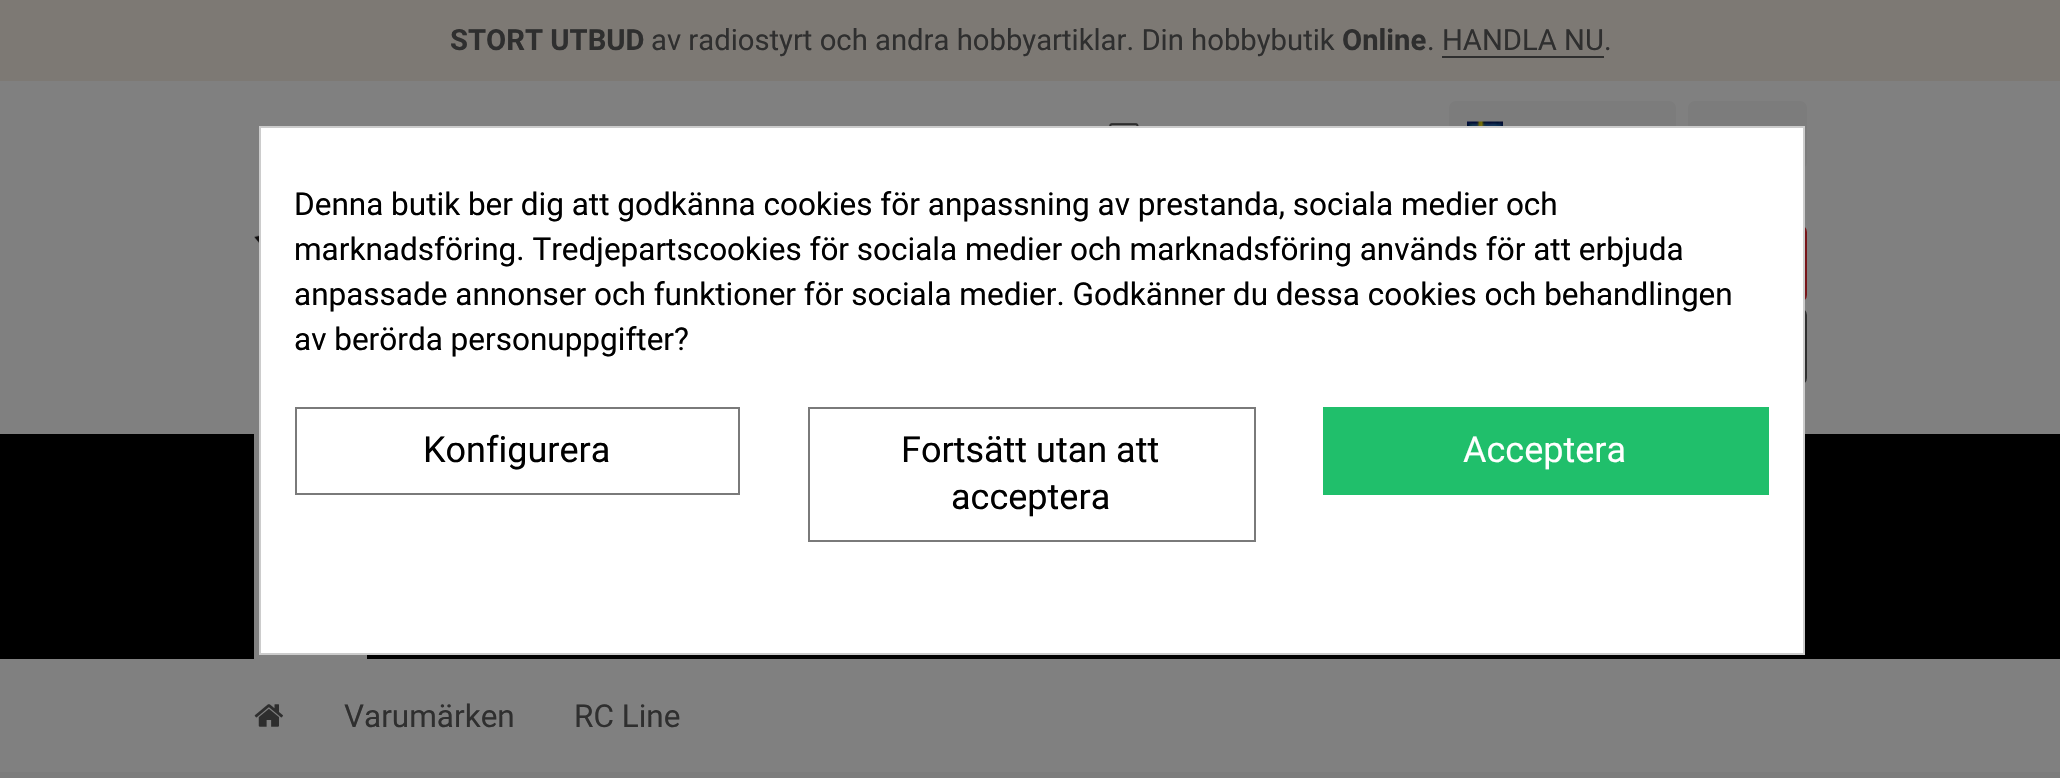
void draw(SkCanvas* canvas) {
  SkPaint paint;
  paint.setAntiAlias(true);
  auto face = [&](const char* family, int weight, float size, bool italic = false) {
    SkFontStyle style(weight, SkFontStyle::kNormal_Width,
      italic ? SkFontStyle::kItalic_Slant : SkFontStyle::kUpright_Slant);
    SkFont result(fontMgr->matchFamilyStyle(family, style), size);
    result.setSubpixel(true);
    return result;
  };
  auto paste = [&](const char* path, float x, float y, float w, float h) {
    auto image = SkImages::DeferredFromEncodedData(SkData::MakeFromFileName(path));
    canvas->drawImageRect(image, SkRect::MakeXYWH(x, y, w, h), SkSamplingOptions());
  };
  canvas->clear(0xff808080);
  paint.setColor(0xff7d7974);
  canvas->drawRect(SkRect::MakeXYWH(0, 0, 2060, 81), paint);
  paint.setColor(0xff2f2f2f);
  canvas->drawRect(SkRect::MakeXYWH(1442, 56, 162, 2), paint);
  paste("img/1.png", 1109, 123, 30, 3);
  paint.setColor(0xff7c7c7c);
  canvas->drawRoundRect(SkRect::MakeXYWH(1449, 101, 227, 68), 7, 7, paint);
  paste("img/2.png", 1467, 121, 36, 5);
  canvas->drawRoundRect(SkRect::MakeXYWH(1688, 101, 119, 68), 7, 7, paint);
  paste("img/3.png", 254, 235, 5, 9);
  paint.setColor(0xff771418);
  canvas->drawRoundRect(SkRect::MakeXYWH(1618, 225, 189, 77), 7, 7, paint);
  paint.setStroke(true);
  paint.setStrokeWidth(5);
  paint.setColor(0xff2f2f2f);
  canvas->drawRoundRect(SkRect::MakeXYWH(1602.5f, 310.5f, 202, 72), 4.5f, 4.5f, paint);
  paint.setStroke(false);
  {
    const struct { float x, y, w, h; SkColor color; } items[] = {
      {0, 434, 2060, 225, 0xff000000},
      {254, 434, 113, 225, 0xff808080},
      {0, 772, 2060, 6, 0xff7c7c7c},
    };
    for (auto [x, y, w, h, color] : items) {
      paint.setColor(color);
      canvas->drawRect(SkRect::MakeXYWH(x, y, w, h), paint);
    }
  }
  paste("img/4.png", 254, 704, 29, 23);
  paint.setColor(0xffffffff);
  canvas->drawRect(SkRect::MakeXYWH(260, 127, 1544, 527), paint);
  paint.setStroke(true);
  paint.setStrokeWidth(2);
  paint.setColor(0xffcccccc);
  canvas->drawRect(SkRect::MakeXYWH(260, 127, 1544, 527), paint);
  paint.setColor(0xff7a7a7a);
  canvas->drawRect(SkRect::MakeXYWH(296, 408, 443, 86), paint);
  canvas->drawRect(SkRect::MakeXYWH(809, 408, 446, 133), paint);
  paint.setStroke(false);
  paint.setColor(0xff20bf6b);
  canvas->drawRect(SkRect::MakeXYWH(1323, 407, 446, 88), paint);
  auto f0 = face("Roboto", 700, 29.25f);
  paint.setColor(0xff2f2f2f);
  canvas->drawString("STORT UTBUD", 450, 50, f0, paint);
  auto f1 = face("Roboto", 400, 29.25f);
  canvas->drawString("av radiostyrt och andra hobbyartiklar. Din hobbybutik", 651, 50, f1, paint);
  canvas->drawString("Online", 1342, 50, f0, paint);
  canvas->drawString(". HANDLA NU.", 1427, 50, f1, paint);
  auto f2 = face("Roboto", 400, 31.5f);
  canvas->drawString("Varumärken", 344, 727, f2, paint);
  canvas->drawString("RC Line", 574, 727, f2, paint);
  paint.setColor(0xff000000);
  {
    const struct { const char* s; float x, y; } items[] = {
      {"Denna butik ber dig att godkänna cookies för anpassning av prestanda, sociala medier och", 294, 215},
      {"marknadsföring. Tredjepartscookies för sociala medier och marknadsföring används för att erbjuda", 294, 260},
      {"anpassade annonser och funktioner för sociala medier. Godkänner du dessa cookies och behandlingen", 294, 305},
      {"av berörda personuppgifter?", 294, 350},
    };
    for (auto [s, x, y] : items) {
      canvas->drawString(s, x, y, f2, paint);
    }
  }
  auto f3 = face("Roboto", 400, 36);
  {
    const struct { const char* s; float x, y; } items[] = {
      {"Konfigurera", 423, 462},
      {"Fortsätt utan att", 901, 462},
      {"acceptera", 951, 509},
    };
    for (auto [s, x, y] : items) {
      canvas->drawString(s, x, y, f3, paint);
    }
  }
  paint.setColor(0xffffffff);
  canvas->drawString("Acceptera", 1463, 462, f3, paint);
}
